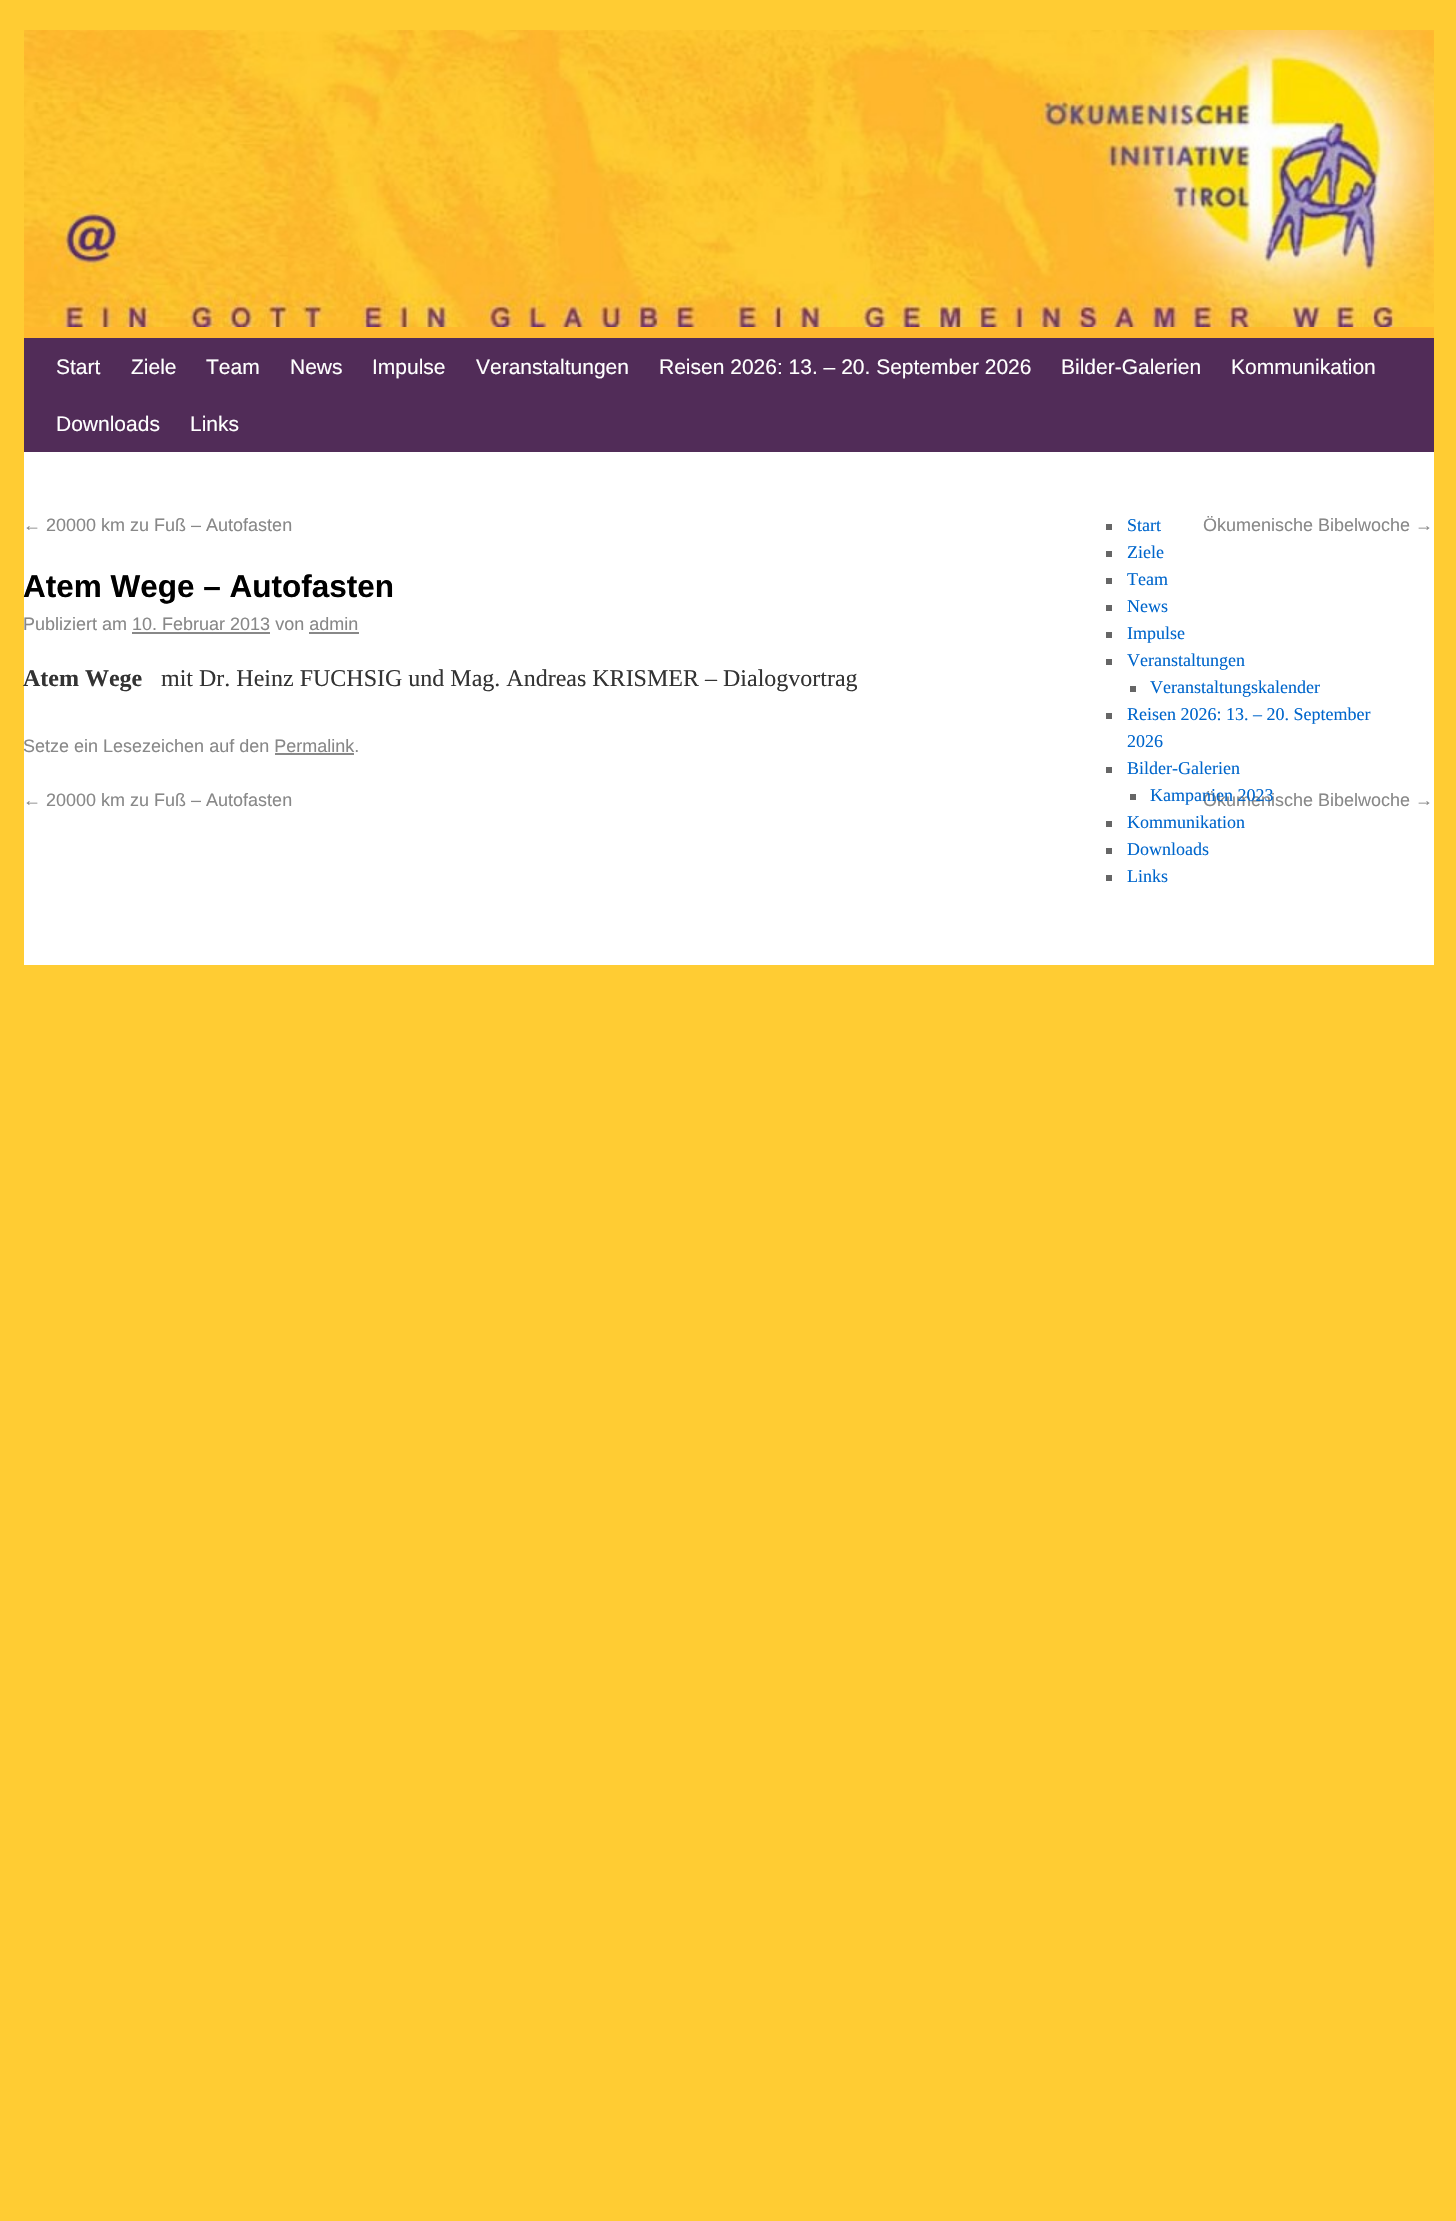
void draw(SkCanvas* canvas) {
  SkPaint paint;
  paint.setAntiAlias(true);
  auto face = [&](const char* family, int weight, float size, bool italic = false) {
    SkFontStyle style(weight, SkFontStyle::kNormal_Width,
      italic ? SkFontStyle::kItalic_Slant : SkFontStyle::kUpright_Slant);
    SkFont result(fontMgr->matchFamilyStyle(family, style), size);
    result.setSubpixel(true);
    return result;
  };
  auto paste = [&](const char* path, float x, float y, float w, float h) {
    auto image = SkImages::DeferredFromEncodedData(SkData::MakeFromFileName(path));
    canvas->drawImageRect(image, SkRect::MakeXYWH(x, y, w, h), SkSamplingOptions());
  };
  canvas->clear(0xffffcc33);
  paint.setColor(0xffffffff);
  canvas->drawRect(SkRect::MakeXYWH(24, 452, 1410, 513), paint);
  paint.setColor(0xffffb82e);
  canvas->drawRect(SkRect::MakeXYWH(24, 327, 1410, 11), paint);
  paste("img/1.png", 24, 30, 1410, 297);
  {
    const struct { float x, y, w, h; SkColor color; } items[] = {
      {24, 338, 1410, 114, 0xff512c58},
      {132, 632, 138, 2, 0xff888888},
      {309, 632, 50, 2, 0xff888888},
      {275, 753, 79, 2, 0xff888888},
      {1106, 524, 6, 6, 0xff666666},
      {1106, 551, 6, 6, 0xff666666},
      {1106, 578, 6, 6, 0xff666666},
      {1106, 605, 6, 6, 0xff666666},
      {1106, 632, 6, 6, 0xff666666},
      {1106, 659, 6, 6, 0xff666666},
      {1130, 686, 6, 6, 0xff666666},
      {1106, 713, 6, 6, 0xff666666},
      {1106, 767, 6, 6, 0xff666666},
      {1130, 794, 6, 6, 0xff666666},
      {1106, 821, 6, 6, 0xff666666},
      {1106, 848, 6, 6, 0xff666666},
      {1106, 875, 6, 6, 0xff666666},
    };
    for (auto [x, y, w, h, color] : items) {
      paint.setColor(color);
      canvas->drawRect(SkRect::MakeXYWH(x, y, w, h), paint);
    }
  }
  auto f0 = face("Liberation Sans", 400, 21);
  paint.setColor(0xffffffff);
  {
    const struct { const char* s; float x, y; } items[] = {
      {"Start", 56, 374},
      {"Ziele", 131, 374},
      {"Team", 206, 374},
      {"News", 290, 374},
      {"Impulse", 372, 374},
      {"Veranstaltungen", 476, 374},
      {"Reisen 2026: 13. – 20. September 2026", 659, 374},
      {"Bilder-Galerien", 1061, 374},
      {"Kommunikation", 1231, 374},
      {"Downloads", 56, 431},
      {"Links", 190, 431},
    };
    for (auto [s, x, y] : items) {
      canvas->drawString(s, x, y, f0, paint);
    }
  }
  auto f1 = face("Liberation Sans", 400, 18);
  paint.setColor(0xff888888);
  canvas->drawString("← 20000 km zu Fuß – Autofasten", 23, 531, f1, paint);
  canvas->drawString("Ökumenische Bibelwoche →", 1203, 531, f1, paint);
  auto f2 = face("Liberation Sans", 700, 31.5f);
  paint.setColor(0xff000000);
  canvas->drawString("Atem Wege – Autofasten", 23, 597, f2, paint);
  paint.setColor(0xff888888);
  canvas->drawString("Publiziert am 10. Februar 2013 von admin", 23, 630, f1, paint);
  auto f3 = face("Liberation Serif", 700, 24);
  paint.setColor(0xff333333);
  canvas->drawString("Atem Wege", 23, 686, f3, paint);
  auto f4 = face("Liberation Serif", 400, 24);
  canvas->drawString("mit Dr. Heinz FUCHSIG und Mag. Andreas KRISMER – Dialogvortrag", 161, 686, f4, paint);
  paint.setColor(0xff888888);
  {
    const struct { const char* s; float x, y; } items[] = {
      {"Setze ein Lesezeichen auf den Permalink.", 23, 752},
      {"← 20000 km zu Fuß – Autofasten", 23, 806},
      {"Ökumenische Bibelwoche →", 1203, 806},
    };
    for (auto [s, x, y] : items) {
      canvas->drawString(s, x, y, f1, paint);
    }
  }
  auto f5 = face("Liberation Serif", 400, 18);
  paint.setColor(0xff0066cc);
  {
    const struct { const char* s; float x, y; } items[] = {
      {"Start", 1127, 531},
      {"Ziele", 1127, 558},
      {"Team", 1127, 585},
      {"News", 1127, 612},
      {"Impulse", 1127, 639},
      {"Veranstaltungen", 1127, 666},
      {"Veranstaltungskalender", 1150, 693},
      {"Reisen 2026: 13. – 20. September", 1127, 720},
      {"2026", 1127, 747},
      {"Bilder-Galerien", 1127, 774},
      {"Kampanien 2023", 1150, 801},
      {"Kommunikation", 1127, 828},
      {"Downloads", 1127, 855},
      {"Links", 1127, 882},
    };
    for (auto [s, x, y] : items) {
      canvas->drawString(s, x, y, f5, paint);
    }
  }
}
